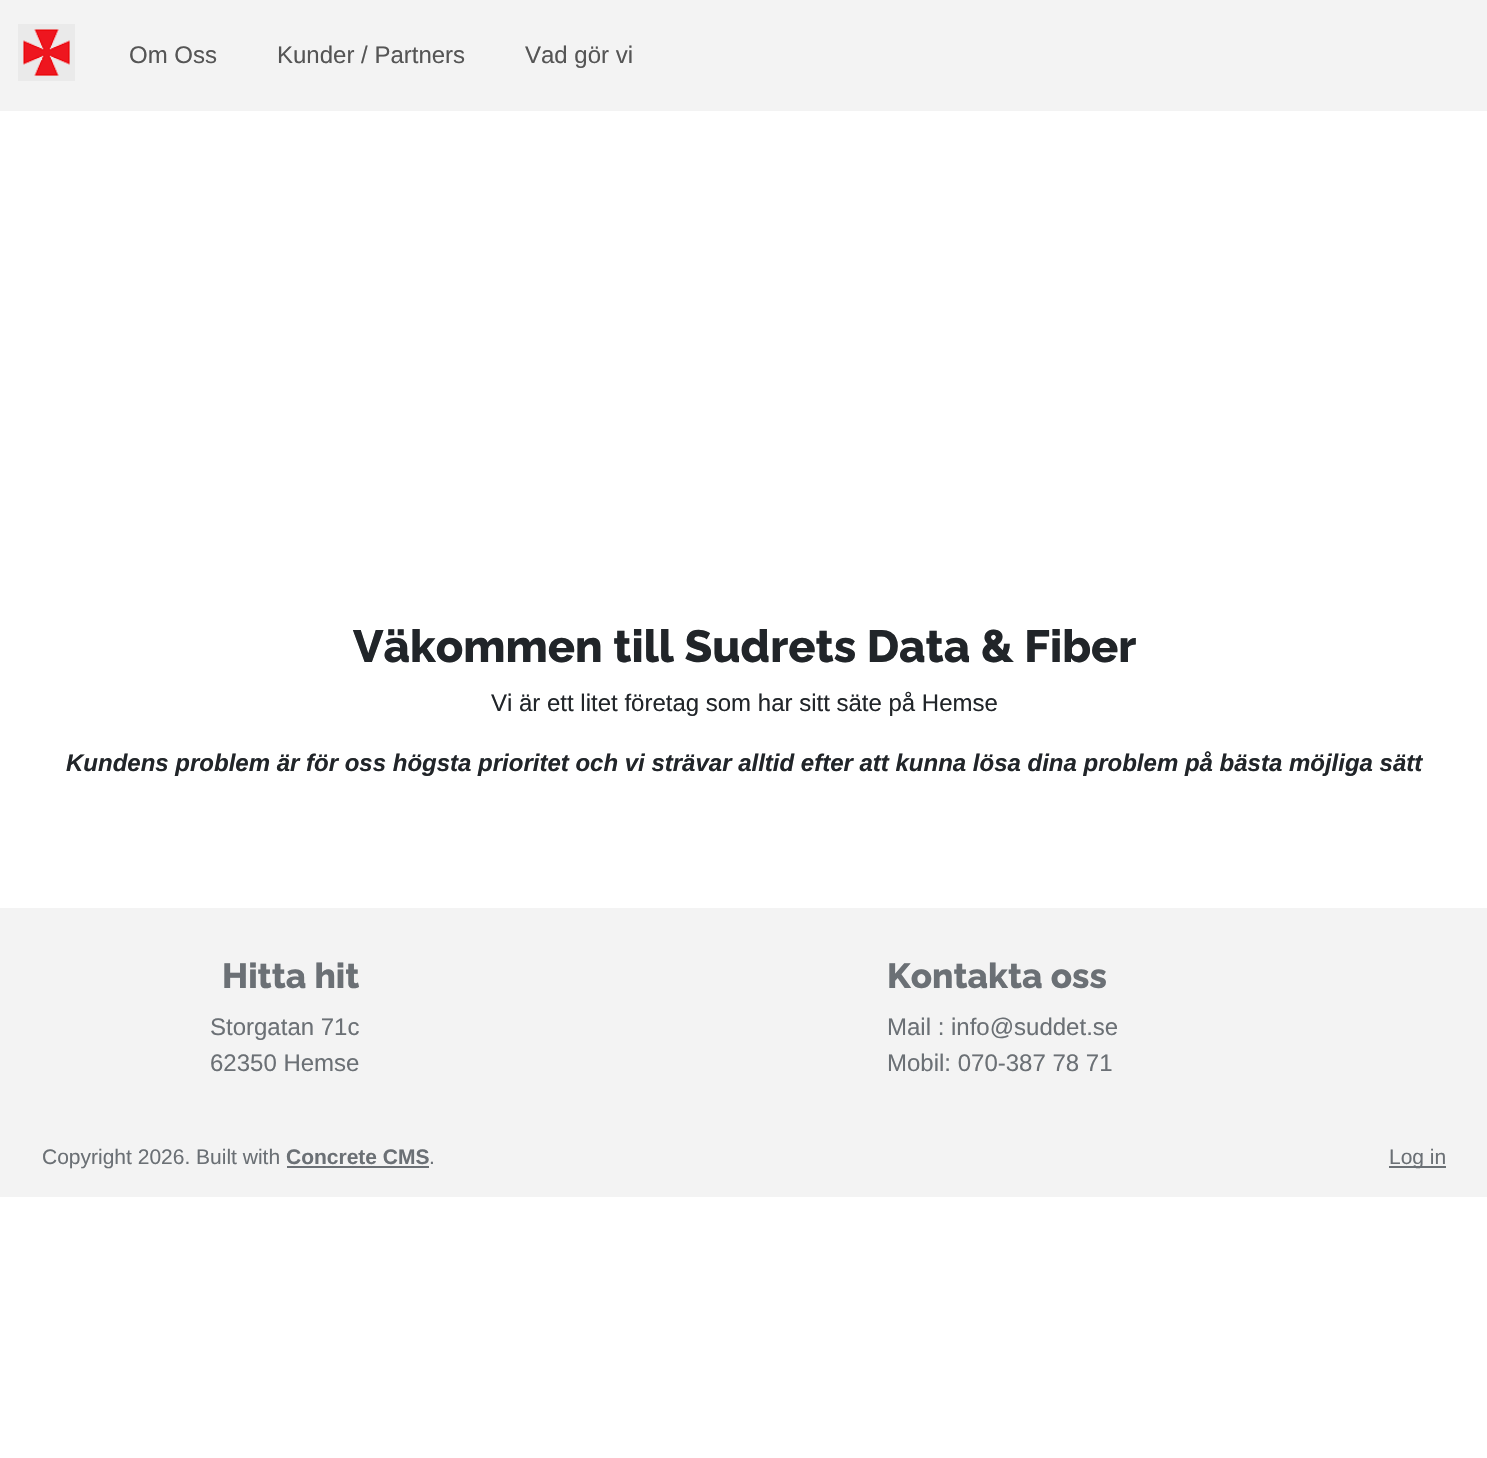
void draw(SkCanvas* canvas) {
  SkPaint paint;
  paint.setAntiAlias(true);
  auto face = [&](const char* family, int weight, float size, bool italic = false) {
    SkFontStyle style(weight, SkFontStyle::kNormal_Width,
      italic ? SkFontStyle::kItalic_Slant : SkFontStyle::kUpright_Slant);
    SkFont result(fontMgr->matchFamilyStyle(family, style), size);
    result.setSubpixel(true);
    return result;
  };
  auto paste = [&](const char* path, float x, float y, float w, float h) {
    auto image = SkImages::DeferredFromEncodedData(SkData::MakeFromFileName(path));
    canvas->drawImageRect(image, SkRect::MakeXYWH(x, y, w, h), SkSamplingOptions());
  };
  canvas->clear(0xffffffff);
  paint.setColor(0xfff3f3f3);
  canvas->drawRect(SkRect::MakeXYWH(0, 0, 1487, 111), paint);
  paste("img/1.png", 18, 24, 57, 57);
  {
    const struct { float x, y, w, h; SkColor color; } items[] = {
      {0, 908, 1487, 289, 0xfff3f3f3},
      {287, 1166, 142, 2, 0xff6b7075},
      {1389, 1166, 57, 2, 0xff6b7075},
    };
    for (auto [x, y, w, h, color] : items) {
      paint.setColor(color);
      canvas->drawRect(SkRect::MakeXYWH(x, y, w, h), paint);
    }
  }
  auto f0 = face("Liberation Sans", 400, 24);
  paint.setColor(0xff555555);
  {
    const struct { const char* s; float x, y; } items[] = {
      {"Om Oss", 129, 63},
      {"Kunder / Partners", 277, 63},
      {"Vad gör vi", 525, 63},
    };
    for (auto [s, x, y] : items) {
      canvas->drawString(s, x, y, f0, paint);
    }
  }
  auto f1 = face("Raleway", 100, 45.2f);
  paint.setColor(0xff212529);
  canvas->drawString("Väkommen till Sudrets Data & Fiber", 353, 662, f1, paint);
  canvas->drawString("Vi är ett litet företag som har sitt säte på Hemse", 491, 711, f0, paint);
  auto f2 = face("Liberation Sans", 700, 24, true);
  canvas->drawString("Kundens problem är för oss högsta prioritet och vi strävar alltid efter att kunna lösa dina problem på bästa möjliga sätt", 66, 771, f2, paint);
  auto f3 = face("Raleway", 100, 35);
  paint.setColor(0xff6b7075);
  canvas->drawString("Hitta hit", 222, 988, f3, paint);
  canvas->drawString("Storgatan 71c", 210, 1035, f0, paint);
  canvas->drawString("62350 Hemse", 210, 1071, f0, paint);
  canvas->drawString("Kontakta oss", 887, 988, f3, paint);
  canvas->drawString("Mail : info@suddet.se", 887, 1035, f0, paint);
  canvas->drawString("Mobil: 070-387 78 71", 887, 1071, f0, paint);
  auto f4 = face("Liberation Sans", 400, 21);
  canvas->drawString("Copyright 2026. Built with", 42, 1164, f4, paint);
  auto f5 = face("Liberation Sans", 700, 21);
  canvas->drawString("Concrete CMS", 286, 1164, f5, paint);
  canvas->drawString(".", 429, 1164, f4, paint);
  canvas->drawString("Log in", 1389, 1164, f4, paint);
}
